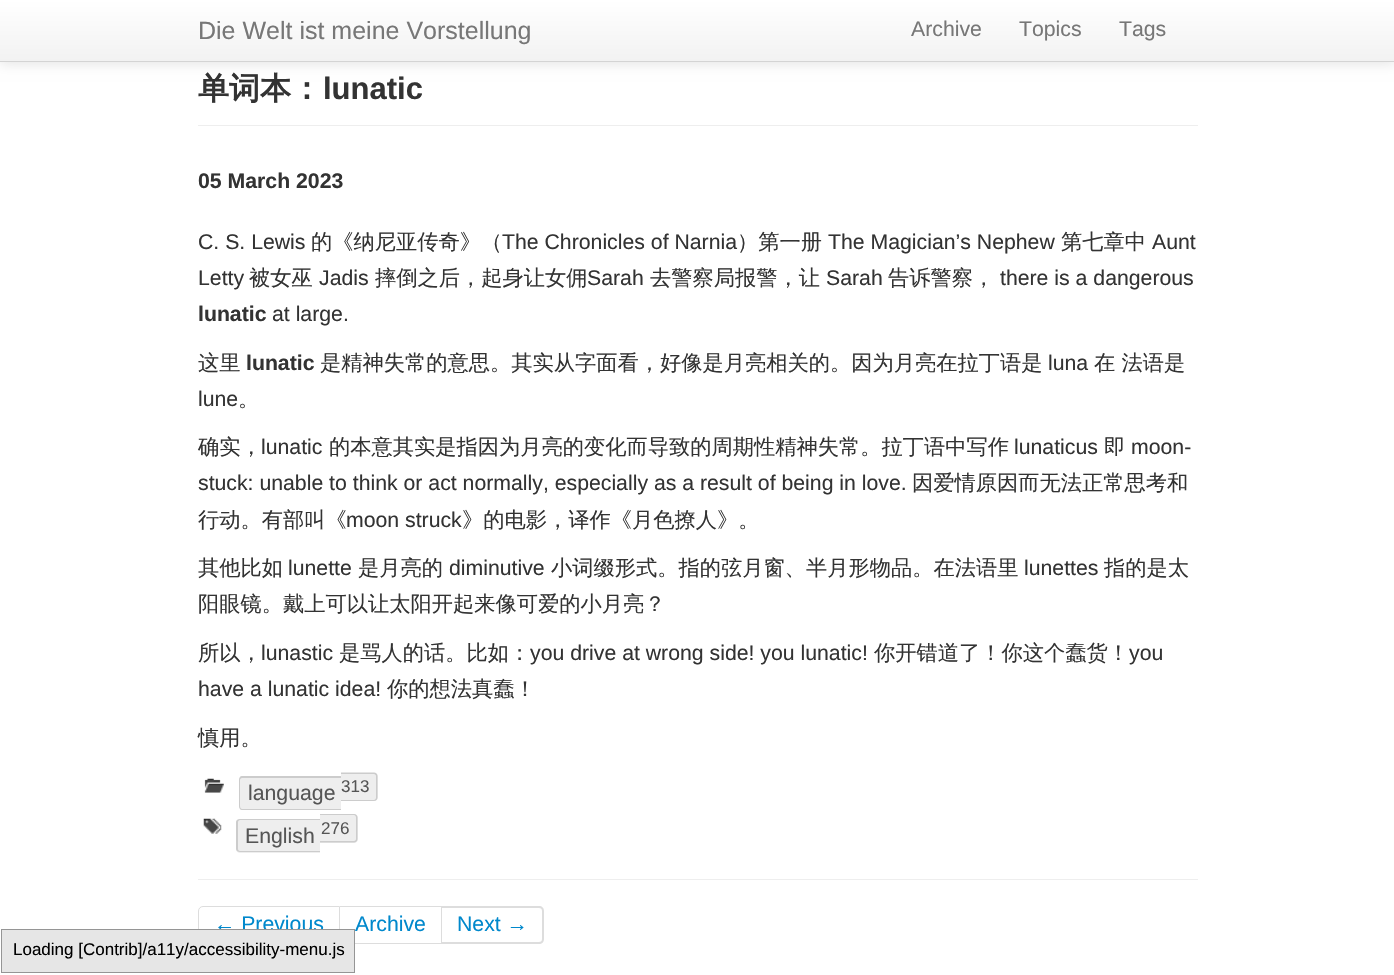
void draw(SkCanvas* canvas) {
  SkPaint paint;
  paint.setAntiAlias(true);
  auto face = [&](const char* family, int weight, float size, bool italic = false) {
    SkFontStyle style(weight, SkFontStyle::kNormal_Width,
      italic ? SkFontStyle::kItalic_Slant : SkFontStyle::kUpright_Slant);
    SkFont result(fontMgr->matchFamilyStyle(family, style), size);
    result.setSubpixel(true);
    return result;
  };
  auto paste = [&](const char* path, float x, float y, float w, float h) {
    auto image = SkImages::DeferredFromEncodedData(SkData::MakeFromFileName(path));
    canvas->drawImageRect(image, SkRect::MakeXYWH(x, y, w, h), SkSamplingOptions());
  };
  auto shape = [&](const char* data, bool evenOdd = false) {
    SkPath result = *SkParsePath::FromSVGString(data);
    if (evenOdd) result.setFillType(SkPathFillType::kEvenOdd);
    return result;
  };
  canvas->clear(0xffffffff);
  paint.setColor(0x1a000000);
  paint.setMaskFilter(SkMaskFilter::MakeBlur(kNormal_SkBlurStyle, 6));
  canvas->drawRect(SkRect::MakeXYWH(0, 1, 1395, 63), paint);
  paint.setMaskFilter(nullptr);
  {
    const SkColor colors[] = {0xffffffff, 0xfff2f2f2};
    const float stops[] = {0, 1};
    const SkPoint ends[] = {{698, 0}, {698, 61}};
    paint.setShader(SkGradientShader::MakeLinear(ends, colors, stops, 2, SkTileMode::kClamp));
    paint.setAlpha(255);
  }
  canvas->drawRect(SkRect::MakeXYWH(0, 0, 1394, 61), paint);
  paint.setShader(nullptr);
  paint.setColor(0xffd4d4d4);
  canvas->drawRect(SkRect::MakeXYWH(0, 61, 1394, 1), paint);
  paint.setColor(0xffeeeeee);
  canvas->drawRect(SkRect::MakeXYWH(198, 125, 1000, 1), paint);
  paste("img/1.png", 204, 778, 20, 15);
  canvas->drawPath(shape("M243 776H341V810H243C241 810 239 808 239 806V780C239 778 241 776 243 776Z"), paint);
  paint.setColor(0xffcccccc);
  canvas->drawPath(shape("M242 776H341V810H242C240 810 239 808 239 806V780C239 778 240 776 242 776ZM242 778H341V809H242C241 809 240 808 240 806V780C240 779 241 778 242 778Z", true), paint);
  paint.setColor(0xffeeeeee);
  canvas->drawPath(shape("M341 773H374C376 773 378 775 378 777V797C378 799 376 801 374 801H341Z"), paint);
  paint.setColor(0xffcccccc);
  canvas->drawPath(shape("M341 772.5H374C376 772.5 377.5 774 377.5 776V797.5C377.5 799.5 376 801 374 801H341ZM341 774H374C375 774 376 775 376 776V797.5C376 799 375 800 374 800H341Z", true), paint);
  paste("img/2.png", 203, 818, 19, 16);
  paint.setColor(0xffeeeeee);
  canvas->drawPath(shape("M240 819H320V853H240C238 853 236 851 236 849V823C236 821 238 819 240 819Z"), paint);
  paint.setColor(0xffcccccc);
  canvas->drawPath(shape("M240 819H320V852H240C238 852 236 851 236 849V822C236 820 238 819 240 819ZM240 820H320V851H240C239 851 238 850 238 849V822C238 821 239 820 240 820Z", true), paint);
  paint.setColor(0xffeeeeee);
  canvas->drawPath(shape("M320 814H354C356 814 358 816 358 818V839C358 841 356 843 354 843H320Z"), paint);
  paint.setColor(0xffcccccc);
  canvas->drawPath(shape("M320 814H354C356 814 357.5 815.5 357.5 817.5V839C357.5 841 356 842.5 354 842.5H320ZM320 815H354C355 815 356 816 356 817.5V839C356 840 355 841 354 841H320Z", true), paint);
  paint.setColor(0xffeeeeee);
  canvas->drawRect(SkRect::MakeXYWH(198, 879, 1000, 1), paint);
  paint.setStroke(true);
  paint.setStrokeWidth(1);
  paint.setColor(0xffdddddd);
  canvas->drawPath(shape("M203 906.5H339.5V943.5H203C200.5 943.5 198.5 941.5 198.5 939V911C198.5 908.5 200.5 906.5 203 906.5Z"), paint);
  paint.setStroke(false);
  {
    const struct { float x, y, w, h; SkColor color; } items[] = {
      {340, 906, 103, 1, 0xffdddddd},
      {441, 906, 1, 38, 0xffdddddd},
      {355, 943, 88, 1, 0xffdddddd},
    };
    for (auto [x, y, w, h, color] : items) {
      paint.setColor(color);
      canvas->drawRect(SkRect::MakeXYWH(x, y, w, h), paint);
    }
  }
  canvas->drawPath(shape("M442 906H539C542 906 544 908 544 911V939C544 942 542 944 539 944H442ZM442 908H539C541 908 542 909 542 911V939C542 941 541 942 539 942H442Z", true), paint);
  auto f0 = face("Liberation Sans", 400, 25);
  paint.setColor(0xff777777);
  canvas->drawString("Die Welt ist meine Vorstellung", 198, 39, f0, paint);
  auto f1 = face("Liberation Sans", 400, 21.25f);
  {
    const struct { const char* s; float x, y; } items[] = {
      {"Archive", 911, 36},
      {"Topics", 1019, 36},
      {"Tags", 1119, 36},
    };
    for (auto [s, x, y] : items) {
      canvas->drawString(s, x, y, f1, paint);
    }
  }
  auto f2 = face("WenQuanYi Zen Hei", 700, 31);
  paint.setColor(0xff333333);
  canvas->drawString("单词本：", 198, 99, f2, paint);
  auto f3 = face("Liberation Sans", 700, 31);
  canvas->drawString("lunatic", 323, 99, f3, paint);
  auto f4 = face("Liberation Sans", 700, 21.25f);
  canvas->drawString("05 March 2023", 198, 188, f4, paint);
  canvas->drawString("C. S. Lewis", 198, 249, f1, paint);
  auto f5 = face("WenQuanYi Zen Hei", 500, 21.25f);
  canvas->drawString("的《纳尼亚传奇》（", 311, 249, f5, paint);
  canvas->drawString("The Chronicles of Narnia", 502, 249, f1, paint);
  canvas->drawString("）第一册", 737, 249, f5, paint);
  canvas->drawString("The Magician’s Nephew", 828, 249, f1, paint);
  canvas->drawString("第七章中", 1061, 249, f5, paint);
  canvas->drawString("Aunt", 1152, 249, f1, paint);
  canvas->drawString("Letty", 198, 285, f1, paint);
  canvas->drawString("被女巫", 249, 285, f5, paint);
  canvas->drawString("Jadis", 319, 285, f1, paint);
  canvas->drawString("摔倒之后，起身让女佣", 375, 285, f5, paint);
  canvas->drawString("Sarah", 587, 285, f1, paint);
  canvas->drawString("去警察局报警，让", 650, 285, f5, paint);
  canvas->drawString("Sarah", 826, 285, f1, paint);
  canvas->drawString("告诉警察，", 888, 285, f5, paint);
  canvas->drawString("there is a dangerous", 1000, 285, f1, paint);
  canvas->drawString("lunatic", 198, 321, f4, paint);
  canvas->drawString("at large.", 272, 321, f1, paint);
  canvas->drawString("这里", 198, 370, f5, paint);
  canvas->drawString("lunatic", 246, 370, f4, paint);
  canvas->drawString("是精神失常的意思。其实从字面看，好像是月亮相关的。因为月亮在拉丁语是", 320, 370, f5, paint);
  canvas->drawString("luna", 1048, 370, f1, paint);
  canvas->drawString("在 法语是", 1094, 370, f5, paint);
  canvas->drawString("lune", 198, 406, f1, paint);
  canvas->drawString("。", 238, 406, f5, paint);
  canvas->drawString("确实，", 198, 454, f5, paint);
  canvas->drawString("lunatic", 261, 454, f1, paint);
  canvas->drawString("的本意其实是指因为月亮的变化而导致的周期性精神失常。拉丁语中写作", 329, 454, f5, paint);
  canvas->drawString("lunaticus", 1014, 454, f1, paint);
  canvas->drawString("即", 1104, 454, f5, paint);
  canvas->drawString("moon-", 1131, 454, f1, paint);
  canvas->drawString("stuck: unable to think or act normally, especially as a result of being in love.", 198, 490, f1, paint);
  canvas->drawString("因爱情原因而无法正常思考和", 912, 490, f5, paint);
  canvas->drawString("行动。有部叫《", 198, 527, f5, paint);
  canvas->drawString("moon struck", 346, 527, f1, paint);
  canvas->drawString("》的电影，译作《月色撩人》。", 462, 527, f5, paint);
  canvas->drawString("其他比如", 198, 575, f5, paint);
  canvas->drawString("lunette", 288, 575, f1, paint);
  canvas->drawString("是月亮的", 358, 575, f5, paint);
  canvas->drawString("diminutive", 449, 575, f1, paint);
  canvas->drawString("小词缀形式。指的弦月窗、半月形物品。在法语里", 551, 575, f5, paint);
  canvas->drawString("lunettes", 1024, 575, f1, paint);
  {
    const struct { const char* s; float x, y; } items[] = {
      {"指的是太", 1104, 575},
      {"阳眼镜。戴上可以让太阳开起来像可爱的小月亮？", 198, 611},
      {"所以，", 198, 660},
    };
    for (auto [s, x, y] : items) {
      canvas->drawString(s, x, y, f5, paint);
    }
  }
  canvas->drawString("lunastic", 261, 660, f1, paint);
  canvas->drawString("是骂人的话。比如：", 339, 660, f5, paint);
  canvas->drawString("you drive at wrong side! you lunatic!", 530, 660, f1, paint);
  canvas->drawString("你开错道了！你这个蠢货！", 874, 660, f5, paint);
  canvas->drawString("you", 1129, 660, f1, paint);
  canvas->drawString("have a lunatic idea!", 198, 696, f1, paint);
  canvas->drawString("你的想法真蠢！", 387, 696, f5, paint);
  canvas->drawString("慎用。", 198, 745, f5, paint);
  paint.setColor(0xff555555);
  canvas->drawString("language", 248, 800, f1, paint);
  auto f6 = face("Liberation Sans", 400, 17);
  canvas->drawString("313", 341, 792, f6, paint);
  canvas->drawString("English", 245, 843, f1, paint);
  canvas->drawString("276", 321, 834, f6, paint);
  paint.setColor(0xff0088cc);
  {
    const struct { const char* s; float x, y; } items[] = {
      {"← Previous", 214, 931},
      {"Archive", 355, 931},
      {"Next →", 457, 931},
    };
    for (auto [s, x, y] : items) {
      canvas->drawString(s, x, y, f1, paint);
    }
  }
  paint.setColor(0xffe6e6e6);
  canvas->drawRect(SkRect::MakeXYWH(1.5f, 929.5f, 353, 43), paint);
  paint.setStroke(true);
  paint.setColor(0xff959595);
  canvas->drawRect(SkRect::MakeXYWH(1.5f, 929.5f, 353, 43), paint);
  paint.setStroke(false);
  paint.setColor(0xff000000);
  canvas->drawString("Loading [Contrib]/a11y/accessibility-menu.js", 13, 955, f6, paint);
}
